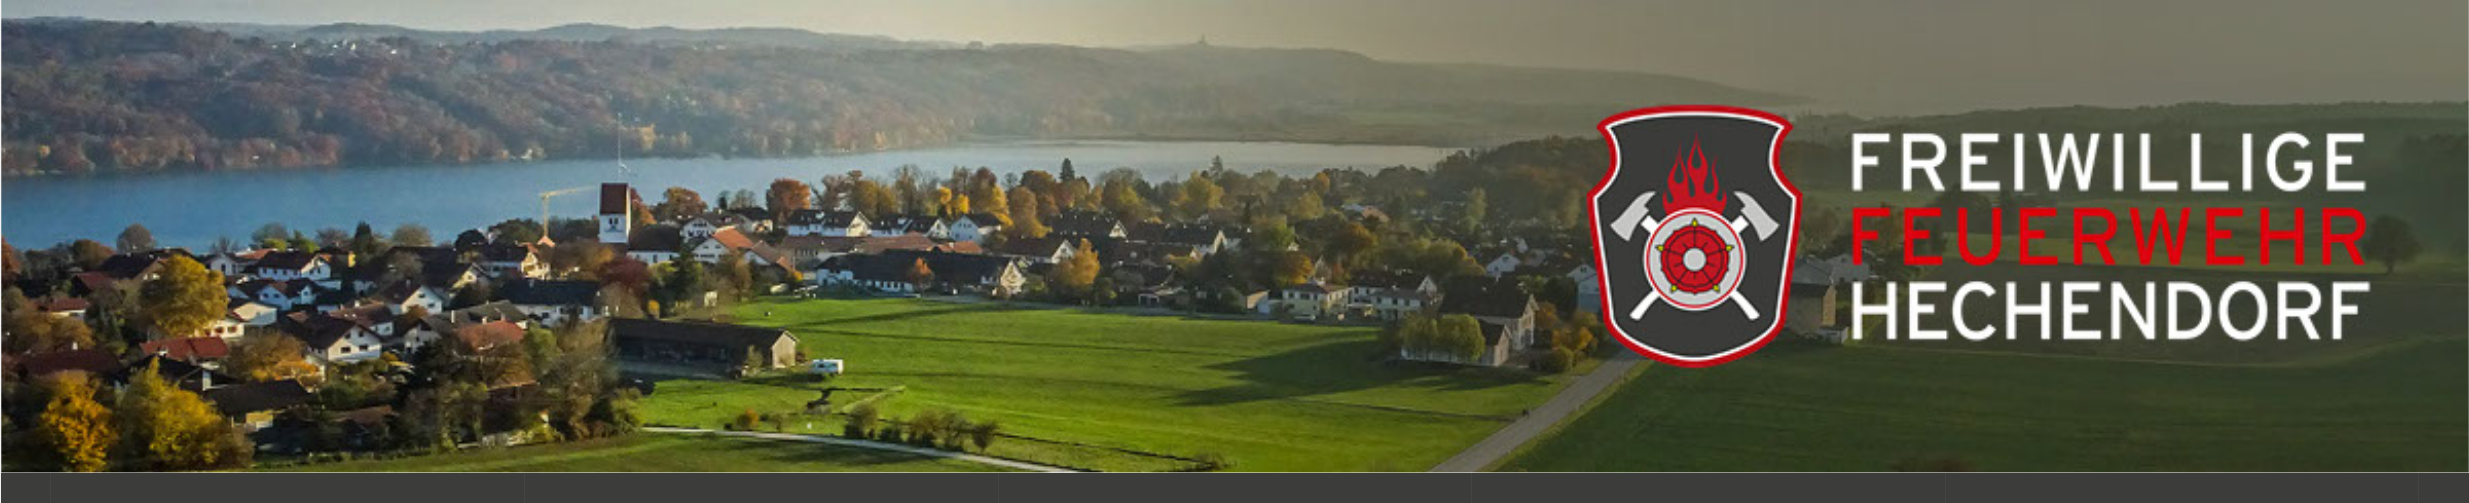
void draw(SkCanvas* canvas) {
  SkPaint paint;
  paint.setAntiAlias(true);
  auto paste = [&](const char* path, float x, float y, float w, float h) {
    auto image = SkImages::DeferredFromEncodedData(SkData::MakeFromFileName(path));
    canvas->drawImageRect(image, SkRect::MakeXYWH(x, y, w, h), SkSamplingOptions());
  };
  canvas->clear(0xffffffff);
  paint.setColor(0xfff2f2f2);
  canvas->drawRect(SkRect::MakeXYWH(0, 0, 1, 503), paint);
  paste("img/1.png", 1, 0, 2468, 473);
  {
    const struct { float x, y, w, h; SkColor color; } items[] = {
      {1, 473, 2468, 30, 0xff3c3c3b},
      {50, 473, 1, 30, 0xff444444},
      {524, 473, 1, 30, 0xff444444},
      {998, 473, 1, 30, 0xff444444},
      {1471, 473, 1, 30, 0xff444444},
      {1945, 473, 1, 30, 0xff444444},
      {2418, 473, 1, 30, 0xff444444},
    };
    for (auto [x, y, w, h, color] : items) {
      paint.setColor(color);
      canvas->drawRect(SkRect::MakeXYWH(x, y, w, h), paint);
    }
  }
}
